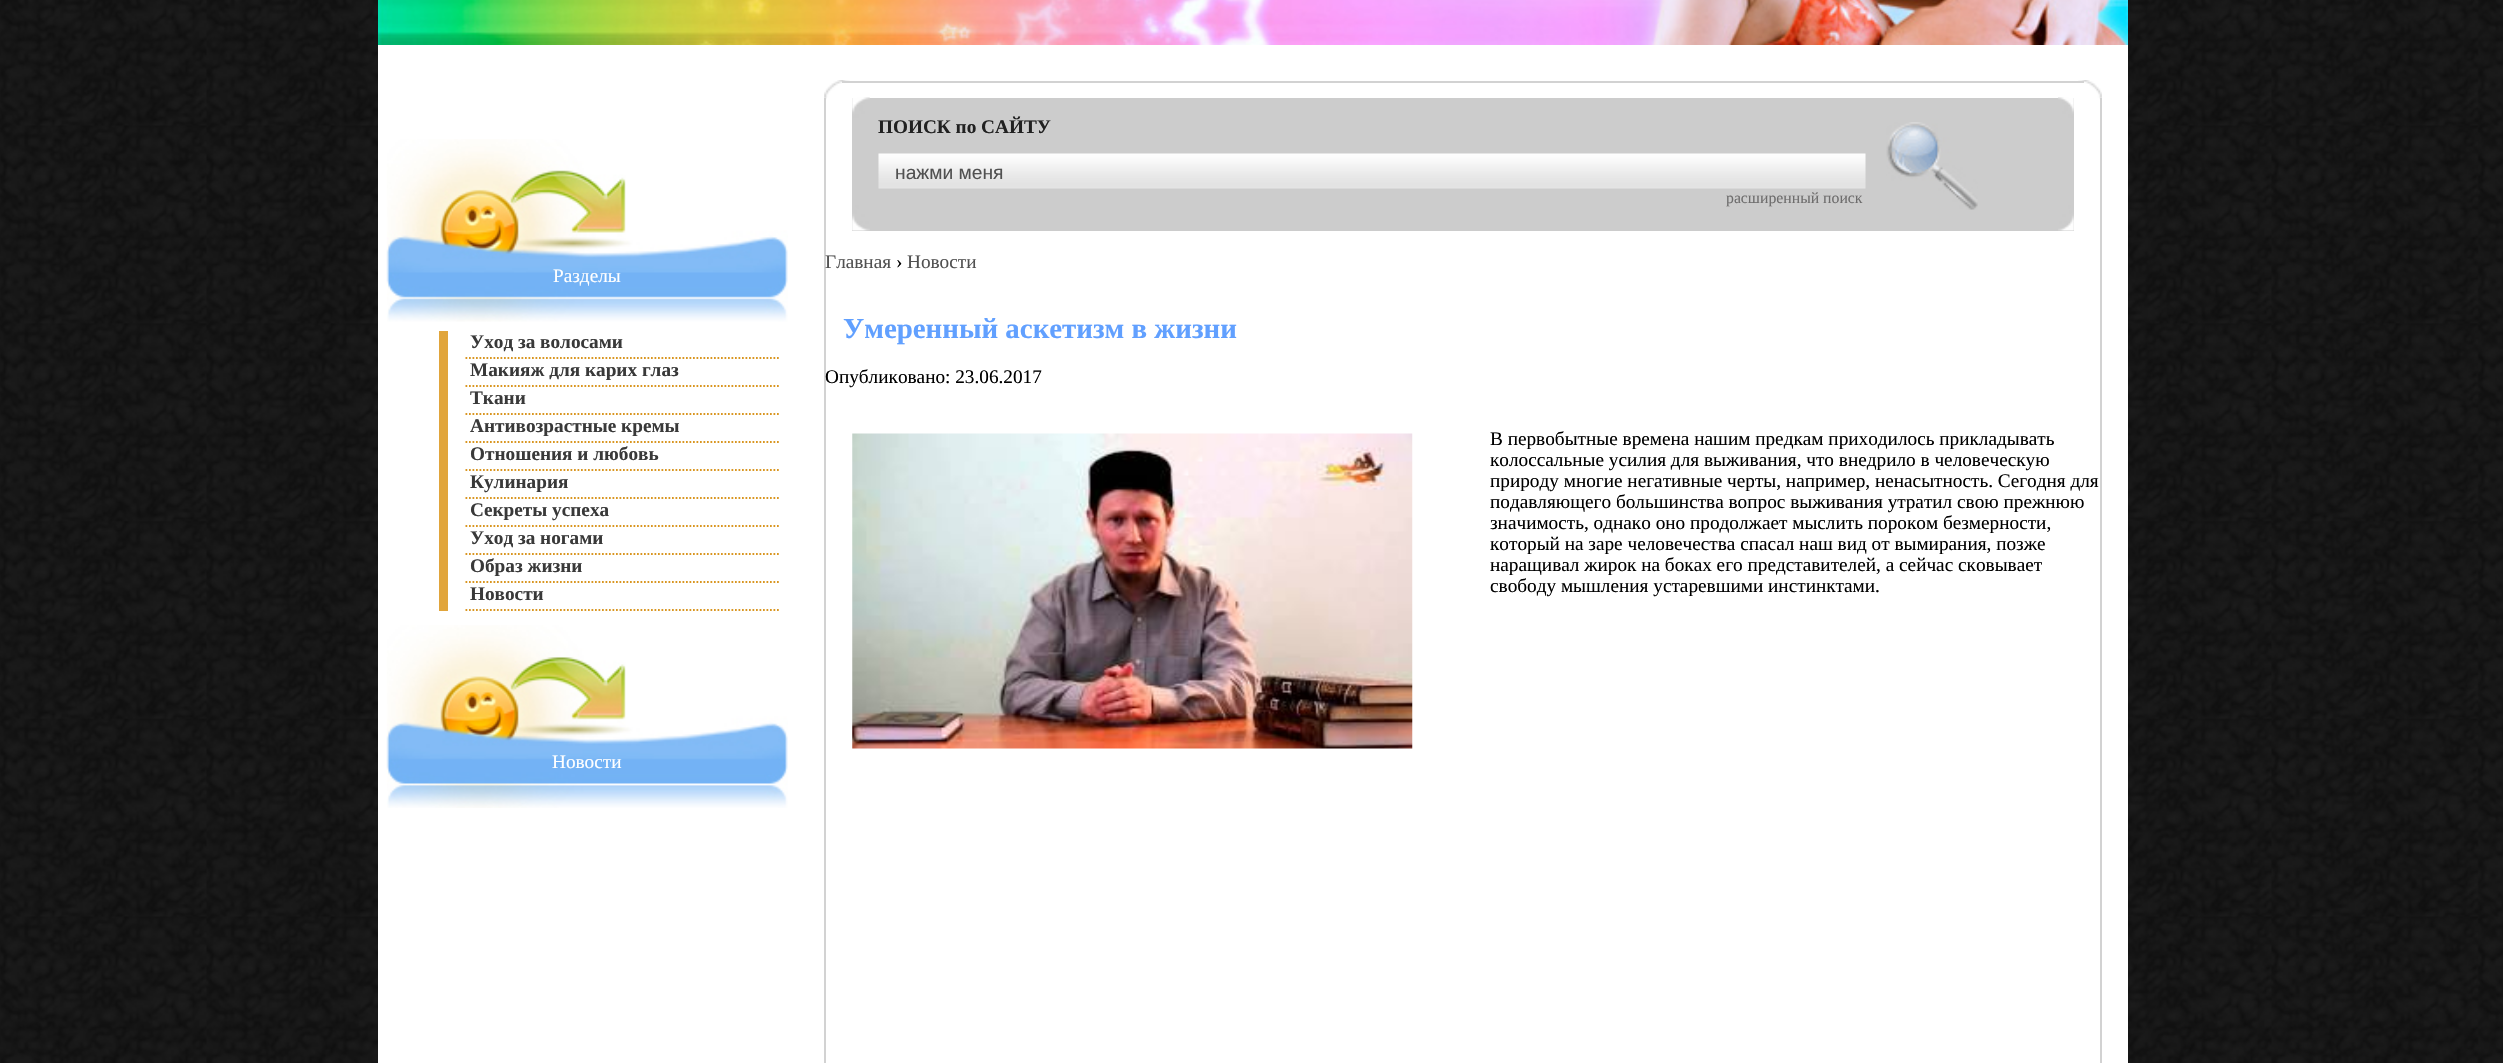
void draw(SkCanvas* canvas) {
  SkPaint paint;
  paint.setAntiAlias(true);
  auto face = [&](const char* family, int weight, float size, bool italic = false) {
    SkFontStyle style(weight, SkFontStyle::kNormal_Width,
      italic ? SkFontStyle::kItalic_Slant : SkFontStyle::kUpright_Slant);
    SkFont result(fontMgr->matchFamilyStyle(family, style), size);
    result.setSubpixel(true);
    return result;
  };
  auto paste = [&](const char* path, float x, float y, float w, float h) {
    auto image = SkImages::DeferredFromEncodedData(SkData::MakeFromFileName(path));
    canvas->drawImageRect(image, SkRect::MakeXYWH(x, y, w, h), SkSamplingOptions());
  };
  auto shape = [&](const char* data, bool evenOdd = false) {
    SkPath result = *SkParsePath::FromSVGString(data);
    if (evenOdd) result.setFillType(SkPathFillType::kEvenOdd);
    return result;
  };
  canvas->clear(0xffffffff);
  paste("img/1.png", 0, 0, 2503, 1063);
  paint.setColor(0xffffffff);
  canvas->drawRect(SkRect::MakeXYWH(378, 45, 1750, 1018), paint);
  paste("img/2.png", 378, 0, 1750, 45);
  paste("img/3.png", 386, 139, 402, 183);
  paint.setColor(0xffe1a53b);
  canvas->drawRect(SkRect::MakeXYWH(439, 331, 9, 280), paint);
  paint.setStroke(true);
  paint.setStrokeWidth(1.8f);
  paint.setColor(0xffd99621);
  paint.setPathEffect(SkDashPathEffect::Make({{1.75f, 1.75f}}, 0));
  canvas->drawPath(shape("M465.5 358H780.5"), paint);
  paint.setPathEffect(nullptr);
  paint.setPathEffect(SkDashPathEffect::Make({{1.75f, 1.75f}}, 0));
  canvas->drawPath(shape("M465.5 386H780.5"), paint);
  paint.setPathEffect(nullptr);
  paint.setPathEffect(SkDashPathEffect::Make({{1.75f, 1.75f}}, 0));
  canvas->drawPath(shape("M465.5 414H780.5"), paint);
  paint.setPathEffect(nullptr);
  paint.setPathEffect(SkDashPathEffect::Make({{1.75f, 1.75f}}, 0));
  canvas->drawPath(shape("M465.5 442H780.5"), paint);
  paint.setPathEffect(nullptr);
  paint.setPathEffect(SkDashPathEffect::Make({{1.75f, 1.75f}}, 0));
  canvas->drawPath(shape("M465.5 470H780.5"), paint);
  paint.setPathEffect(nullptr);
  paint.setPathEffect(SkDashPathEffect::Make({{1.75f, 1.75f}}, 0));
  canvas->drawPath(shape("M465.5 498H780.5"), paint);
  paint.setPathEffect(nullptr);
  paint.setPathEffect(SkDashPathEffect::Make({{1.75f, 1.75f}}, 0));
  canvas->drawPath(shape("M465.5 526H780.5"), paint);
  paint.setPathEffect(nullptr);
  paint.setPathEffect(SkDashPathEffect::Make({{1.75f, 1.75f}}, 0));
  canvas->drawPath(shape("M465.5 554H780.5"), paint);
  paint.setPathEffect(nullptr);
  paint.setPathEffect(SkDashPathEffect::Make({{1.75f, 1.75f}}, 0));
  canvas->drawPath(shape("M465.5 582H780.5"), paint);
  paint.setPathEffect(nullptr);
  paint.setPathEffect(SkDashPathEffect::Make({{1.75f, 1.75f}}, 0));
  canvas->drawPath(shape("M465.5 610H780.5"), paint);
  paint.setPathEffect(nullptr);
  paste("img/4.png", 386, 625, 402, 183);
  paste("img/5.png", 824, 80, 26, 20);
  paste("img/6.png", 2078, 80, 24, 20);
  paint.setStroke(false);
  {
    const struct { float x, y, w, h; SkColor color; } items[] = {
      {842, 81, 1242, 2, 0xffd2d2d2},
      {2100, 98, 2, 965, 0xffd2d2d2},
      {824, 98, 2, 965, 0xffd2d2d2},
      {852, 98, 1222, 133, 0xffcccccc},
    };
    for (auto [x, y, w, h, color] : items) {
      paint.setColor(color);
      canvas->drawRect(SkRect::MakeXYWH(x, y, w, h), paint);
    }
  }
  paste("img/7.png", 852, 97, 18, 134);
  paste("img/8.png", 2058, 97, 16, 134);
  paste("img/9.png", 878, 153, 988, 36);
  paste("img/10.png", 1886, 122, 92, 88);
  paste("img/11.png", 852, 433, 561, 316);
  auto f0 = face("Liberation Serif", 400, 19.25f);
  paint.setColor(0xffffffff);
  canvas->drawString("Разделы", 553, 282, f0, paint);
  auto f1 = face("Liberation Serif", 700, 19.25f);
  paint.setColor(0xff393939);
  {
    const struct { const char* s; float x, y; } items[] = {
      {"Уход за волосами", 470, 348},
      {"Макияж для карих глаз", 470, 376},
      {"Ткани", 470, 404},
      {"Антивозрастные кремы", 470, 432},
      {"Отношения и любовь", 470, 460},
      {"Кулинария", 470, 488},
      {"Секреты успеха", 470, 516},
      {"Уход за ногами", 470, 544},
      {"Образ жизни", 470, 572},
      {"Новости", 470, 600},
    };
    for (auto [s, x, y] : items) {
      canvas->drawString(s, x, y, f1, paint);
    }
  }
  paint.setColor(0xffffffff);
  canvas->drawString("Новости", 552, 768, f0, paint);
  paint.setColor(0xff212121);
  canvas->drawString("ПОИСК по САЙТУ", 878, 133, f1, paint);
  auto f2 = face("Liberation Sans", 400, 19.25f);
  paint.setColor(0xff515151);
  canvas->drawString("нажми меня", 895, 179, f2, paint);
  auto f3 = face("Liberation Serif", 400, 15.75f);
  paint.setColor(0xff6e6d6d);
  canvas->drawString("расширенный поиск", 1726, 203, f3, paint);
  paint.setColor(0xff515151);
  canvas->drawString("Главная", 825, 268, f0, paint);
  paint.setColor(0xff000000);
  canvas->drawString("›", 896, 268, f0, paint);
  paint.setColor(0xff515151);
  canvas->drawString("Новости", 907, 268, f0, paint);
  auto f4 = face("Liberation Serif", 700, 28.9f);
  paint.setColor(0xff61a0ff);
  canvas->drawString("Умеренный аскетизм в жизни", 843, 338, f4, paint);
  paint.setColor(0xff000000);
  {
    const struct { const char* s; float x, y; } items[] = {
      {"Опубликовано: 23.06.2017", 825, 383},
      {"В первобытные времена нашим предкам приходилось прикладывать", 1490, 445},
      {"колоссальные усилия для выживания, что внедрило в человеческую", 1490, 466},
      {"природу многие негативные черты, например, ненасытность. Сегодня для", 1490, 487},
      {"подавляющего большинства вопрос выживания утратил свою прежнюю", 1490, 508},
      {"значимость, однако оно продолжает мыслить пороком безмерности,", 1490, 529},
      {"который на заре человечества спасал наш вид от вымирания, позже", 1490, 550},
      {"наращивал жирок на боках его представителей, а сейчас сковывает", 1490, 571},
      {"свободу мышления устаревшими инстинктами.", 1490, 592},
    };
    for (auto [s, x, y] : items) {
      canvas->drawString(s, x, y, f0, paint);
    }
  }
}
